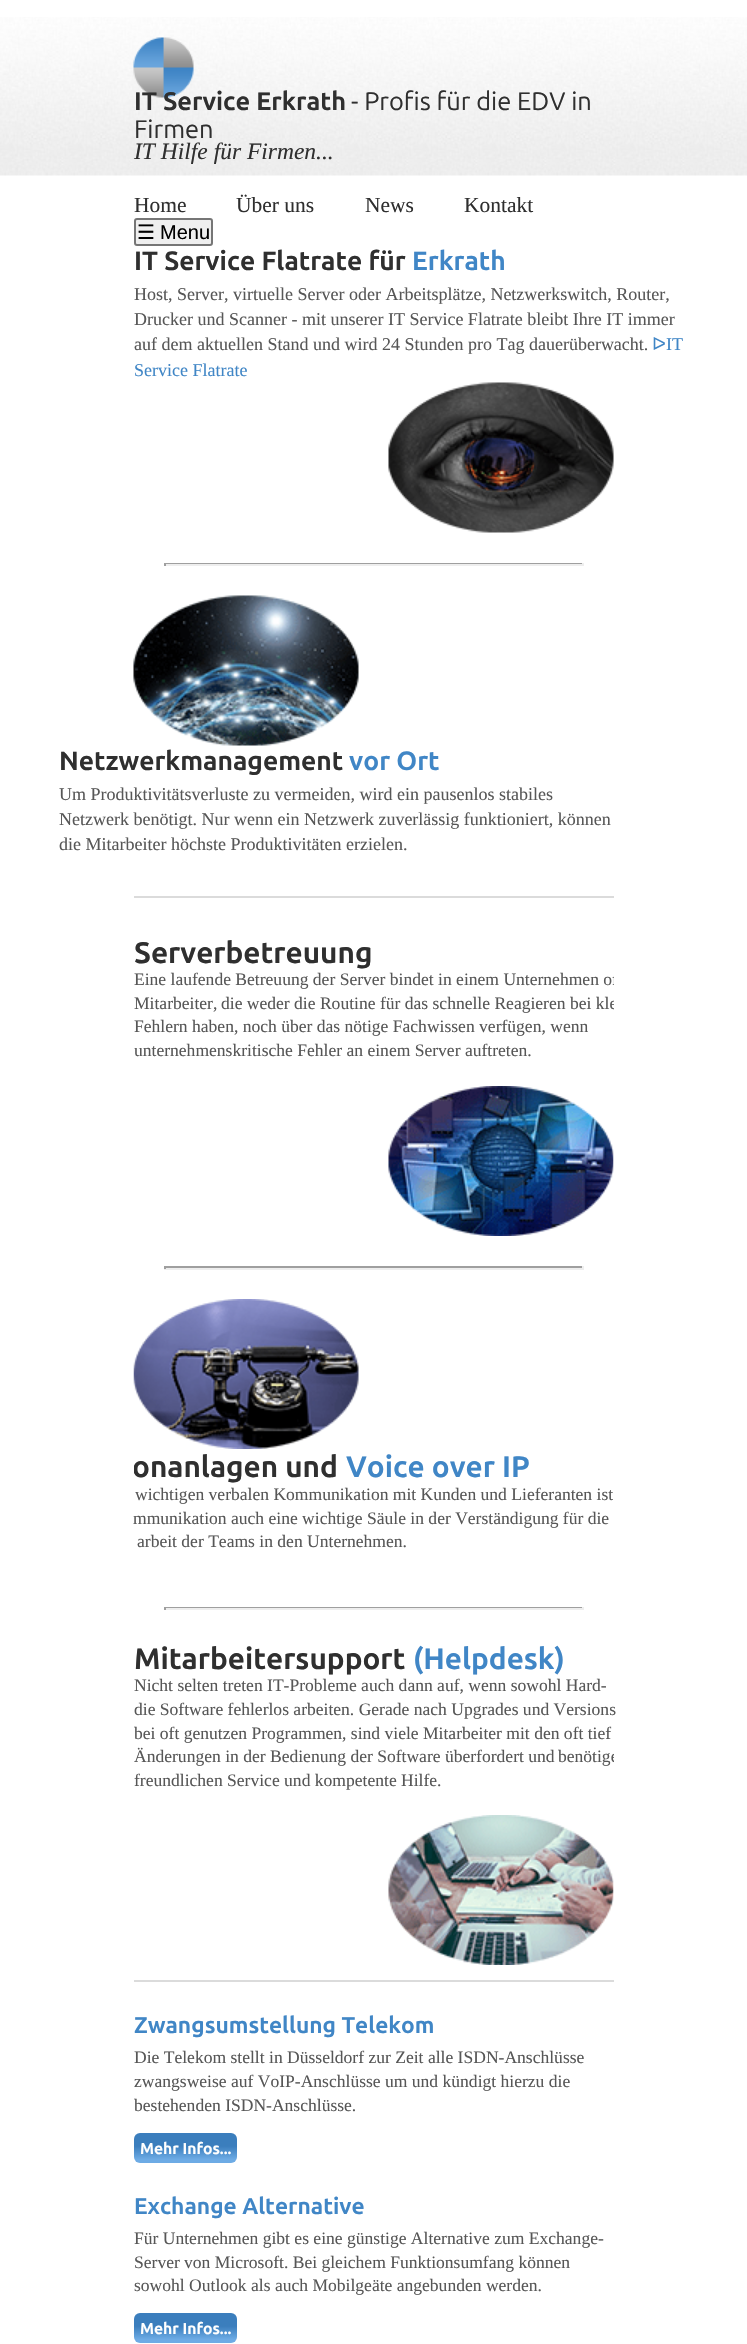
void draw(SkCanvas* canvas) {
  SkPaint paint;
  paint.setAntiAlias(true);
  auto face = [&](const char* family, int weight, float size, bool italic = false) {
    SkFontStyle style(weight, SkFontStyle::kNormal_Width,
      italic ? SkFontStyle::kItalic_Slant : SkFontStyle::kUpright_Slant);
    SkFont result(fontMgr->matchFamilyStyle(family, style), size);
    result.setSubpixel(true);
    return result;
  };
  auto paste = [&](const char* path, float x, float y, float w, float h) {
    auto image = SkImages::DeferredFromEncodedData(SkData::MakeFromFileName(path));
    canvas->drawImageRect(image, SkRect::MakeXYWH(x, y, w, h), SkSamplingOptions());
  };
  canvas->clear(0xffffffff);
  paste("img/1.png", 0, 17, 747, 159);
  paste("img/2.png", 133, 37, 61, 61);
  paint.setColor(0xffefefef);
  canvas->drawRoundRect(SkRect::MakeXYWH(135, 219, 77, 26), 2, 2, paint);
  paint.setStroke(true);
  paint.setStrokeWidth(2);
  paint.setColor(0xff767676);
  canvas->drawRoundRect(SkRect::MakeXYWH(135, 219, 77, 26), 2, 2, paint);
  paste("img/3.png", 388, 382, 226, 151);
  paint.setStroke(false);
  {
    const struct { float x, y, w, h; SkColor color; } items[] = {
      {164, 563, 420, 1, 0xff9f9f9f},
      {582, 563, 2, 3, 0xffeeeeee},
      {164, 564, 420, 2, 0xffeeeeee},
      {164, 563, 2, 3, 0xff9f9f9f},
    };
    for (auto [x, y, w, h, color] : items) {
      paint.setColor(color);
      canvas->drawRect(SkRect::MakeXYWH(x, y, w, h), paint);
    }
  }
  paste("img/4.png", 133, 595, 226, 151);
  paint.setColor(0xffdbdbdb);
  canvas->drawRect(SkRect::MakeXYWH(134, 896, 480, 2), paint);
  paste("img/5.png", 388, 1086, 226, 150);
  {
    const struct { float x, y, w, h; SkColor color; } items[] = {
      {164, 1266, 420, 2, 0xff9f9f9f},
      {582, 1266, 2, 3, 0xffeeeeee},
      {164, 1268, 420, 2, 0xffeeeeee},
      {164, 1266, 2, 3, 0xff9f9f9f},
    };
    for (auto [x, y, w, h, color] : items) {
      paint.setColor(color);
      canvas->drawRect(SkRect::MakeXYWH(x, y, w, h), paint);
    }
  }
  paste("img/6.png", 133, 1299, 226, 150);
  {
    const struct { float x, y, w, h; SkColor color; } items[] = {
      {164, 1607, 420, 1, 0xff9f9f9f},
      {582, 1607, 2, 3, 0xffeeeeee},
      {164, 1608, 420, 2, 0xffeeeeee},
      {164, 1607, 2, 3, 0xff9f9f9f},
    };
    for (auto [x, y, w, h, color] : items) {
      paint.setColor(color);
      canvas->drawRect(SkRect::MakeXYWH(x, y, w, h), paint);
    }
  }
  paste("img/7.png", 388, 1815, 226, 150);
  paint.setColor(0xffdbdbdb);
  canvas->drawRect(SkRect::MakeXYWH(134, 1980, 480, 2), paint);
  {
    const SkColor colors[] = {0xff6dabe5, 0xff3b7ebd};
    const float stops[] = {0.12f, 0.56f};
    const SkPoint ends[] = {{134, 2163}, {134, 2133}};
    paint.setShader(SkGradientShader::MakeLinear(ends, colors, stops, 2, SkTileMode::kClamp));
    paint.setAlpha(255);
  }
  canvas->drawRoundRect(SkRect::MakeXYWH(134, 2133, 103, 30), 6, 6, paint);
  {
    const SkColor colors[] = {0xff6dabe5, 0xff3b7ebd};
    const float stops[] = {0.12f, 0.56f};
    const SkPoint ends[] = {{134, 2343}, {134, 2313}};
    paint.setShader(SkGradientShader::MakeLinear(ends, colors, stops, 2, SkTileMode::kClamp));
    paint.setAlpha(255);
  }
  canvas->drawRoundRect(SkRect::MakeXYWH(134, 2313, 103, 30), 6, 6, paint);
  auto f0 = face("Ubuntu", 700, 25.4f);
  paint.setShader(nullptr);
  paint.setColor(0xff2f2f2f);
  canvas->drawString("IT Service Erkrath", 134, 110, f0, paint);
  auto f1 = face("Ubuntu", 400, 25.4f);
  canvas->drawString("- Profis für die EDV in", 351, 110, f1, paint);
  canvas->drawString("Firmen", 134, 138, f1, paint);
  auto f2 = face("Liberation Serif", 400, 23.5f, true);
  canvas->drawString("IT Hilfe für Firmen...", 134, 159, f2, paint);
  auto f3 = face("Liberation Serif", 400, 21.5f);
  {
    const struct { const char* s; float x, y; } items[] = {
      {"Home", 134, 212},
      {"Über uns", 236, 212},
      {"News", 365, 212},
      {"Kontakt", 464, 212},
    };
    for (auto [s, x, y] : items) {
      canvas->drawString(s, x, y, f3, paint);
    }
  }
  auto f4 = face("DejaVu Sans", 400, 20);
  paint.setColor(0xff000000);
  canvas->drawString("☰", 137, 239, f4, paint);
  auto f5 = face("Liberation Sans", 400, 20);
  canvas->drawString("Menu", 160, 239, f5, paint);
  auto f6 = face("Ubuntu", 700, 26.5f);
  paint.setColor(0xff2f2f2f);
  canvas->drawString("IT Service Flatrate für", 134, 270, f6, paint);
  paint.setColor(0xff4086c6);
  canvas->drawString("Erkrath", 412, 270, f6, paint);
  auto f7 = face("Liberation Serif", 400, 18);
  paint.setColor(0xff575757);
  {
    const struct { const char* s; float x, y; } items[] = {
      {"Host, Server, virtuelle Server oder Arbeitsplätze, Netzwerkswitch, Router,", 134, 300},
      {"Drucker und Scanner - mit unserer IT Service Flatrate bleibt Ihre IT immer", 134, 325},
      {"auf dem aktuellen Stand und wird 24 Stunden pro Tag dauerüberwacht.", 134, 350},
    };
    for (auto [s, x, y] : items) {
      canvas->drawString(s, x, y, f7, paint);
    }
  }
  auto f8 = face("DejaVu Sans", 400, 18);
  paint.setColor(0xff4086c6);
  canvas->drawString("ᐅ", 652, 350, f8, paint);
  canvas->drawString("IT", 666, 350, f7, paint);
  canvas->drawString("Service Flatrate", 134, 376, f7, paint);
  paint.setColor(0xff2f2f2f);
  canvas->drawString("Netzwerkmanagement", 59, 770, f6, paint);
  paint.setColor(0xff4086c6);
  canvas->drawString("vor Ort", 349, 770, f6, paint);
  paint.setColor(0xff575757);
  {
    const struct { const char* s; float x, y; } items[] = {
      {"Um Produktivitätsverluste zu vermeiden, wird ein pausenlos stabiles", 59, 800},
      {"Netzwerk benötigt. Nur wenn ein Netzwerk zuverlässig funktioniert, können", 59, 825},
      {"die Mitarbeiter höchste Produktivitäten erzielen.", 59, 850},
    };
    for (auto [s, x, y] : items) {
      canvas->drawString(s, x, y, f7, paint);
    }
  }
  auto f9 = face("Ubuntu", 700, 29.75f);
  paint.setColor(0xff2f2f2f);
  canvas->drawString("Serverbetreuung", 134, 963, f9, paint);
  canvas->save();
  canvas->clipRect(SkRect::MakeXYWH(134, 897, 480, 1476));
  auto f10 = face("Liberation Serif", 400, 17.55f);
  paint.setColor(0xff575757);
  canvas->drawString("Eine laufende Betreuung der Server bindet in einem Unternehmen of", 134, 985, f10, paint);
  canvas->restore();
  canvas->drawString("Mitarbeiter,", 134, 1009, f10, paint);
  canvas->save();
  canvas->clipRect(SkRect::MakeXYWH(134, 897, 480, 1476));
  canvas->drawString("die weder die Routine für das schnelle Reagieren bei kle", 221, 1009, f10, paint);
  canvas->restore();
  canvas->drawString("Fehlern haben, noch über das nötige Fachwissen verfügen, wenn", 134, 1032, f10, paint);
  canvas->drawString("unternehmenskritische Fehler an einem Server auftreten.", 134, 1056, f10, paint);
  canvas->save();
  canvas->clipRect(SkRect::MakeXYWH(134, 897, 480, 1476));
  paint.setColor(0xff2f2f2f);
  canvas->drawString("onanlagen und", 132, 1477, f9, paint);
  canvas->restore();
  paint.setColor(0xff4086c6);
  canvas->drawString("Voice over IP", 346, 1477, f9, paint);
  paint.setColor(0xff575757);
  {
    const struct { const char* s; float x, y; } items[] = {
      {"wichtigen verbalen Kommunikation mit Kunden und Lieferanten ist", 135, 1500},
      {"mmunikation auch eine wichtige Säule in der Verständigung für die", 133, 1524},
      {"arbeit der Teams in den Unternehmen.", 137, 1547},
    };
    for (auto [s, x, y] : items) {
      canvas->drawString(s, x, y, f10, paint);
    }
  }
  paint.setColor(0xff2f2f2f);
  canvas->drawString("Mitarbeitersupport", 134, 1669, f9, paint);
  paint.setColor(0xff4086c6);
  canvas->drawString("(Helpdesk)", 413, 1669, f9, paint);
  paint.setColor(0xff575757);
  {
    const struct { const char* s; float x, y; } items[] = {
      {"Nicht selten treten IT-Probleme auch dann auf, wenn sowohl Hard-", 134, 1691},
      {"die Software fehlerlos arbeiten. Gerade nach Upgrades und Versions", 134, 1715},
      {"bei oft genutzen Programmen, sind viele Mitarbeiter mit den oft tief", 134, 1739},
      {"Änderungen in der Bedienung der Software überfordert und", 134, 1762},
    };
    for (auto [s, x, y] : items) {
      canvas->drawString(s, x, y, f10, paint);
    }
  }
  canvas->save();
  canvas->clipRect(SkRect::MakeXYWH(134, 897, 480, 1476));
  canvas->drawString("benötige", 558, 1762, f10, paint);
  canvas->restore();
  canvas->drawString("freundlichen Service und kompetente Hilfe.", 134, 1786, f10, paint);
  auto f11 = face("Ubuntu", 700, 22.8f);
  paint.setColor(0xff4086c6);
  canvas->drawString("Zwangsumstellung Telekom", 134, 2033, f11, paint);
  paint.setColor(0xff575757);
  {
    const struct { const char* s; float x, y; } items[] = {
      {"Die Telekom stellt in Düsseldorf zur Zeit alle ISDN-Anschlüsse", 134, 2063},
      {"zwangsweise auf VoIP-Anschlüsse um und kündigt hierzu die", 134, 2087},
      {"bestehenden ISDN-Anschlüsse.", 134, 2111},
    };
    for (auto [s, x, y] : items) {
      canvas->drawString(s, x, y, f10, paint);
    }
  }
  auto f12 = face("Ubuntu", 700, 15.75f);
  paint.setColor(0xffffffff);
  canvas->drawString("Mehr Infos...", 140, 2154, f12, paint);
  paint.setColor(0xff4086c6);
  canvas->drawString("Exchange Alternative", 134, 2214, f11, paint);
  paint.setColor(0xff575757);
  {
    const struct { const char* s; float x, y; } items[] = {
      {"Für Unternehmen gibt es eine günstige Alternative zum Exchange-", 134, 2244},
      {"Server", 134, 2268},
      {"von Microsoft. Bei gleichem Funktionsumfang können", 184, 2268},
      {"sowohl Outlook als auch Mobilgeäte angebunden werden.", 134, 2291},
    };
    for (auto [s, x, y] : items) {
      canvas->drawString(s, x, y, f10, paint);
    }
  }
  paint.setColor(0xffffffff);
  canvas->drawString("Mehr Infos...", 140, 2334, f12, paint);
}
